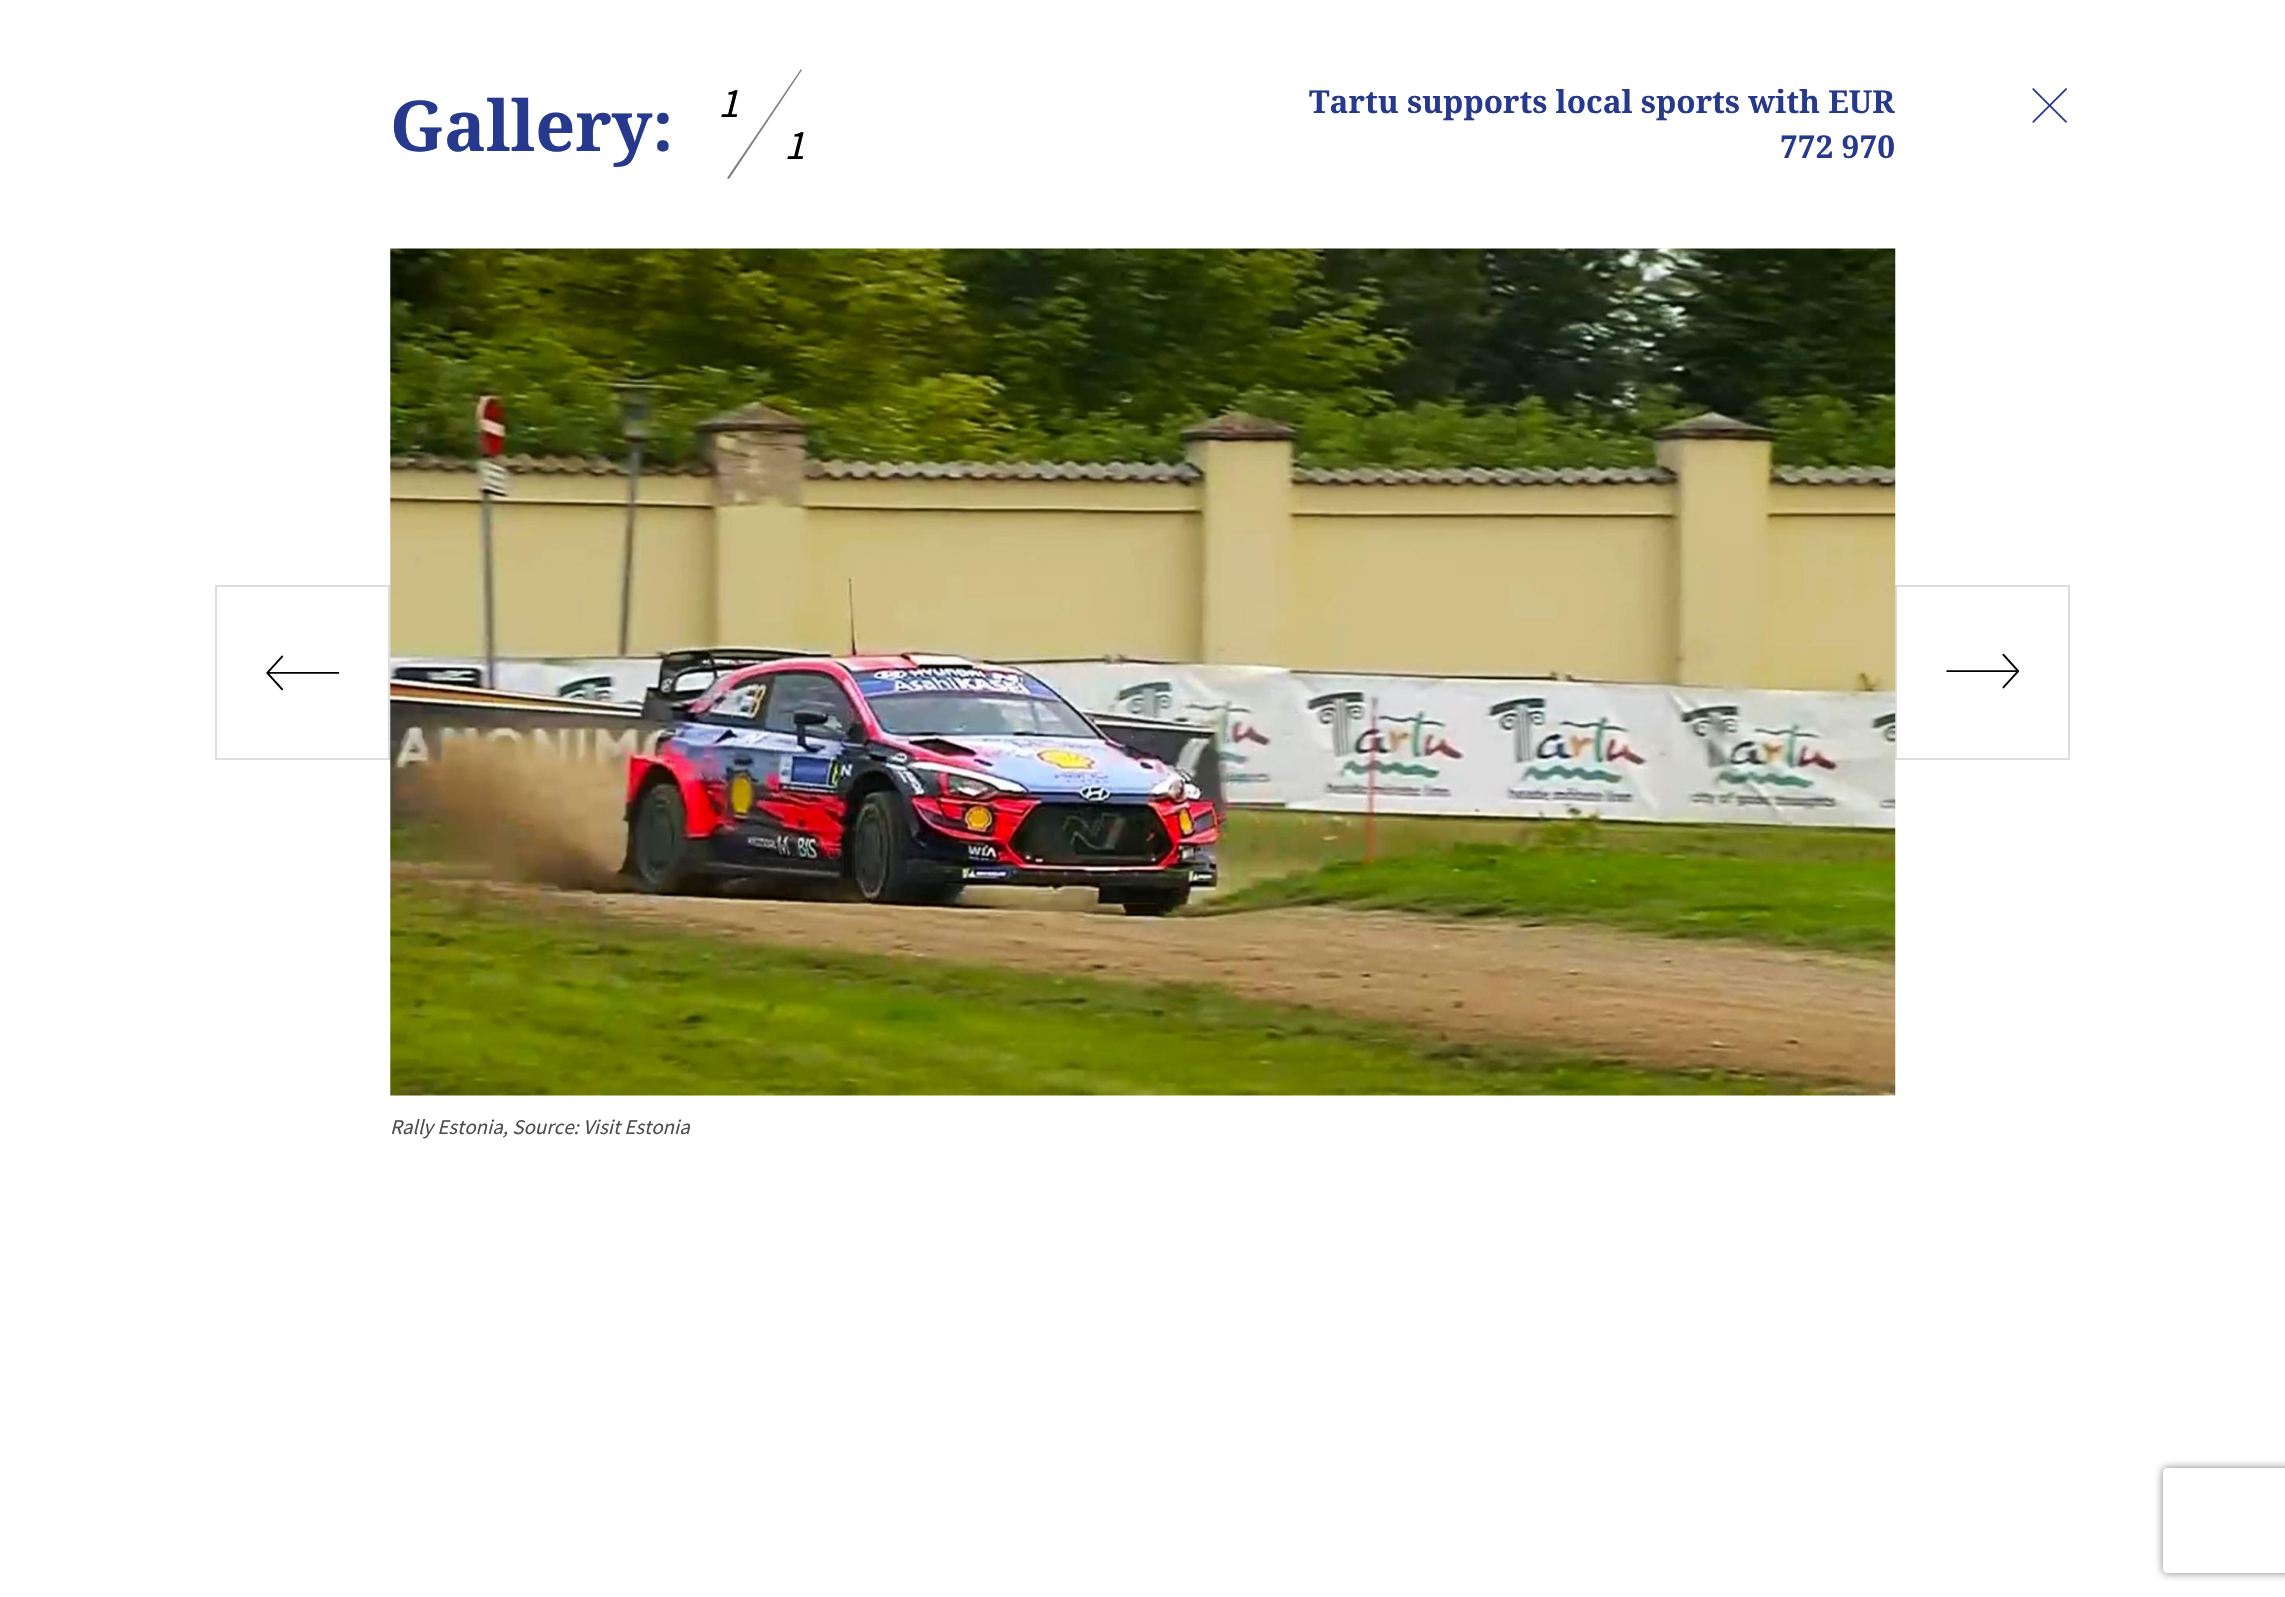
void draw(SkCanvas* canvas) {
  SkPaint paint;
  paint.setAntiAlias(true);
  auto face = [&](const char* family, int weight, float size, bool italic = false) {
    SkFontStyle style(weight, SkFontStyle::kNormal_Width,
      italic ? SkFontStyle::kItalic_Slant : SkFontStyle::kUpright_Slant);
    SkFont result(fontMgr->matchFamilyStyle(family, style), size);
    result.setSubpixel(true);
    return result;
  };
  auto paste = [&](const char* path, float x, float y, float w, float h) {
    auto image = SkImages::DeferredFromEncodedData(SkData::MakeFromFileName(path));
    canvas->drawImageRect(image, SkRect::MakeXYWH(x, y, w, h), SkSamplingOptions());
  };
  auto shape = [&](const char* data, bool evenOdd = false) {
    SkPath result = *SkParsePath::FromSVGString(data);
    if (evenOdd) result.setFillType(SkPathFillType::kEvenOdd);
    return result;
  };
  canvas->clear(0xffffffff);
  paste("img/1.png", 2032, 88, 35, 35);
  paint.setStroke(true);
  paint.setStrokeWidth(2);
  paint.setColor(0xffdddddd);
  canvas->drawRect(SkRect::MakeXYWH(1896, 586, 173, 173), paint);
  paste("img/2.png", 390, 248, 1506, 848);
  canvas->drawRect(SkRect::MakeXYWH(216, 586, 173, 173), paint);
  paste("img/3.png", 266, 655, 74, 36);
  paste("img/4.png", 1946, 653, 74, 36);
  canvas->save();
  canvas->clipPath(shape("M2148 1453H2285V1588H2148ZM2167 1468H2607C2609 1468 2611 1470 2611 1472V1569C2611 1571 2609 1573 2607 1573H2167C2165 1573 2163 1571 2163 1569V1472C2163 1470 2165 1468 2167 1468Z", true), true);
  paint.setStroke(false);
  paint.setColor(0xff808080);
  paint.setMaskFilter(SkMaskFilter::MakeBlur(kNormal_SkBlurStyle, 4.5f));
  canvas->drawRoundRect(SkRect::MakeXYWH(2163, 1468, 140, 105), 4, 4, paint);
  paint.setMaskFilter(nullptr);
  canvas->restore();
  auto f0 = face("Noto Serif", 700, 70);
  paint.setColor(0xff26398c);
  canvas->drawString("Gallery:", 390, 151, f0, paint);
  auto f1 = face("Source Sans Pro", 400, 42, true);
  paint.setColor(0xff000000);
  canvas->drawString("1", 718, 117, f1, paint);
  canvas->drawString("1", 784, 159, f1, paint);
  paint.setColor(0xff808080);
  canvas->drawPath(shape("M801 69L802 70L729 179L727 178Z"), paint);
  auto f2 = face("Noto Serif", 700, 31.5f);
  paint.setColor(0xff26398c);
  canvas->drawString("Tartu supports local sports with EUR", 1309, 113, f2, paint);
  canvas->drawString("772 970", 1780, 158, f2, paint);
  auto f3 = face("Source Sans Pro", 400, 21, true);
  paint.setColor(0xff4d4d4d);
  canvas->drawString("Rally Estonia, Source: Visit Estonia", 390, 1134, f3, paint);
}
